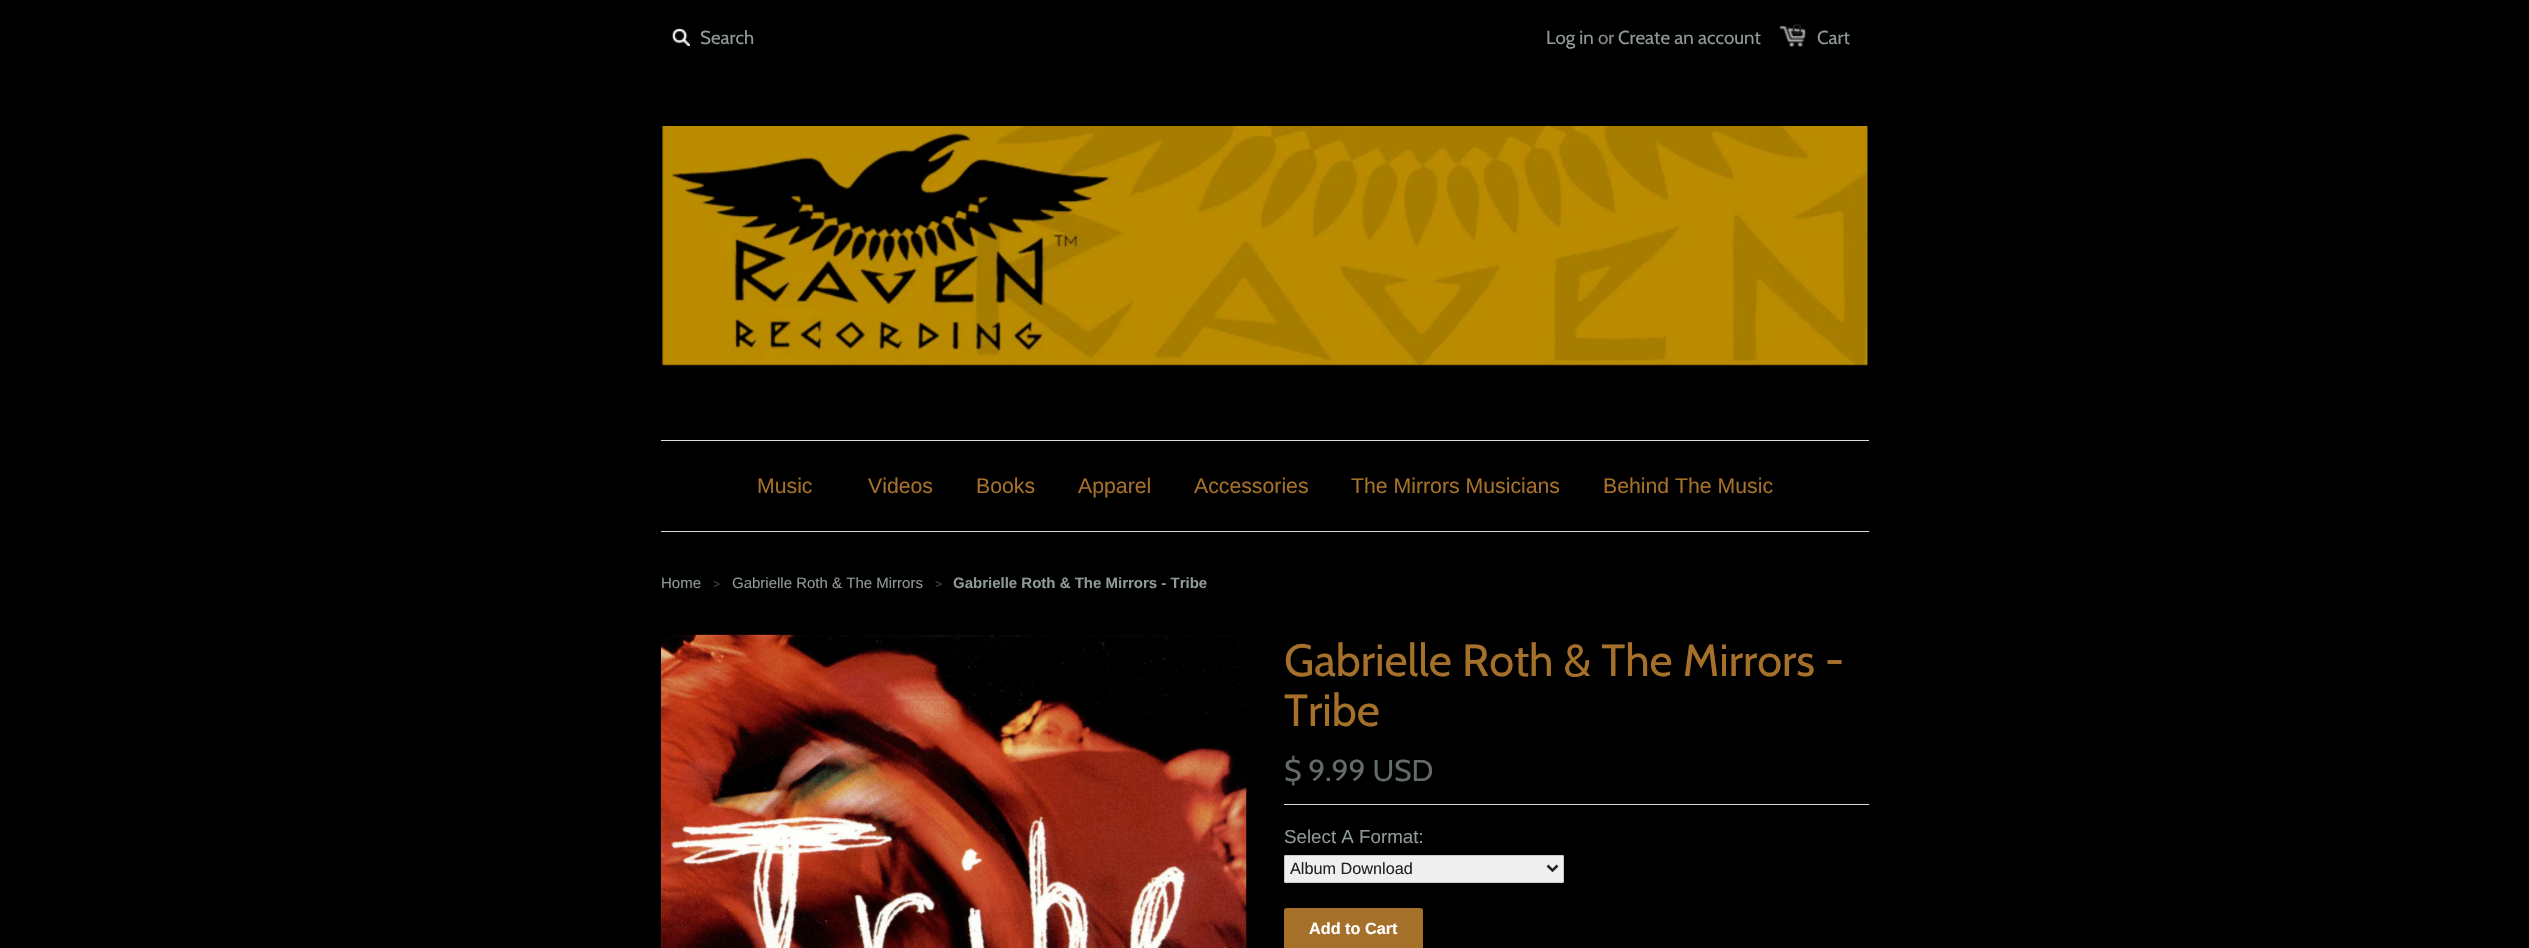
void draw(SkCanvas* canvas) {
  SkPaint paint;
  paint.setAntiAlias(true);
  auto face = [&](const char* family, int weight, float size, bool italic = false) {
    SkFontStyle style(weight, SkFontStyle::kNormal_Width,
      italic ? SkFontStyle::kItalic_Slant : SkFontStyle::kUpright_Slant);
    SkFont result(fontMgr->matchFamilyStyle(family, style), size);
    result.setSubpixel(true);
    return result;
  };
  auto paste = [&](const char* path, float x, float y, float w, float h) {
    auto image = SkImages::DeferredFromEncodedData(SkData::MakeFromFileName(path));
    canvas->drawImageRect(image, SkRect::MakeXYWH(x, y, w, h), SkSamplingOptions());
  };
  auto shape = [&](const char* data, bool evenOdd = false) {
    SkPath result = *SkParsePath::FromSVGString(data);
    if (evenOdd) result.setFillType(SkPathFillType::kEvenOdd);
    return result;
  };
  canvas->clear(0xff000000);
  paste("img/1.png", 672, 28, 18, 19);
  paste("img/2.png", 1779, 26, 27, 21);
  paste("img/3.png", 662, 126, 1206, 240);
  paint.setColor(0xffdddddd);
  canvas->drawRect(SkRect::MakeXYWH(661, 440, 1208, 1), paint);
  canvas->drawRect(SkRect::MakeXYWH(661, 531, 1208, 1), paint);
  paste("img/4.png", 661, 634, 586, 314);
  canvas->drawRect(SkRect::MakeXYWH(1284, 804, 585, 1), paint);
  paint.setColor(0xffefefef);
  canvas->drawRoundRect(SkRect::MakeXYWH(1284.5f, 855.5f, 279, 27), 0.5f, 0.5f, paint);
  paint.setStroke(true);
  paint.setStrokeWidth(1);
  paint.setColor(0xffcccccc);
  canvas->drawRoundRect(SkRect::MakeXYWH(1284.5f, 855.5f, 279, 27), 0.5f, 0.5f, paint);
  paint.setStrokeWidth(2.5f);
  paint.setColor(0xff222222);
  canvas->drawPath(shape("M1547.5 865.5L1552.5 870.5L1557.5 865.5"), paint);
  paint.setStroke(false);
  paint.setColor(0xffa5702a);
  canvas->drawRoundRect(SkRect::MakeXYWH(1284, 908, 139, 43), 2.5f, 2.5f, paint);
  auto f0 = face("Cabin", 400, 18.75f);
  paint.setColor(0xff8f9999);
  canvas->drawString("Search", 700, 44, f0, paint);
  canvas->drawString("Log in", 1546, 44, f0, paint);
  paint.setColor(0xff888888);
  canvas->drawString("or", 1598, 44, f0, paint);
  paint.setColor(0xff8f9999);
  canvas->drawString("Create an account", 1618, 44, f0, paint);
  auto f1 = face("Cabin", 400, 14);
  paint.setColor(0xff222222);
  canvas->drawString("0", 1792, 34, f1, paint);
  paint.setColor(0xff8f9999);
  canvas->drawString("Cart", 1817, 44, f0, paint);
  auto f2 = face("Liberation Sans", 400, 21.25f);
  paint.setColor(0xffa5702a);
  {
    const struct { const char* s; float x, y; } items[] = {
      {"Music", 757, 493},
      {"Videos", 868, 493},
      {"Books", 976, 493},
      {"Apparel", 1078, 493},
      {"Accessories", 1194, 493},
      {"The Mirrors Musicians", 1351, 493},
      {"Behind The Music", 1603, 493},
    };
    for (auto [s, x, y] : items) {
      canvas->drawString(s, x, y, f2, paint);
    }
  }
  auto f3 = face("Liberation Sans", 400, 15);
  paint.setColor(0xff8f9999);
  canvas->drawString("Home", 661, 588, f3, paint);
  auto f4 = face("Liberation Sans", 400, 12);
  paint.setColor(0xff484d4d);
  canvas->drawString(">", 713, 588, f4, paint);
  paint.setColor(0xff8f9999);
  canvas->drawString("Gabrielle Roth & The Mirrors", 732, 588, f3, paint);
  paint.setColor(0xff484d4d);
  canvas->drawString(">", 935, 588, f4, paint);
  auto f5 = face("Liberation Sans", 700, 15);
  paint.setColor(0xff8f9999);
  canvas->drawString("Gabrielle Roth & The Mirrors - Tribe", 953, 588, f5, paint);
  auto f6 = face("Cabin", 400, 45);
  paint.setColor(0xffa5702a);
  canvas->drawString("Gabrielle Roth & The Mirrors -", 1284, 676, f6, paint);
  canvas->drawString("Tribe", 1284, 726, f6, paint);
  auto f7 = face("Cabin", 400, 30);
  paint.setColor(0xff646b6b);
  canvas->drawString("$ 9.99 USD", 1284, 781, f7, paint);
  auto f8 = face("Liberation Sans", 400, 18.75f);
  paint.setColor(0xff8f9999);
  canvas->drawString("Select A Format:", 1284, 843, f8, paint);
  auto f9 = face("Liberation Sans", 400, 16.25f);
  paint.setColor(0xff222222);
  canvas->drawString("Album Download", 1290, 874, f9, paint);
  auto f10 = face("Liberation Sans", 700, 16.25f);
  paint.setColor(0xffffffff);
  canvas->drawString("Add to Cart", 1309, 934, f10, paint);
}
